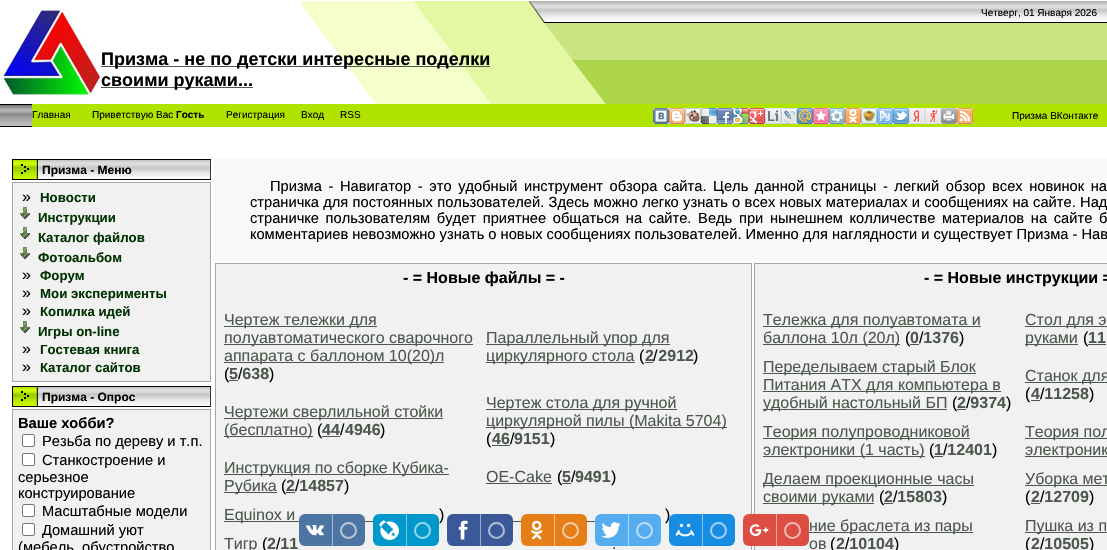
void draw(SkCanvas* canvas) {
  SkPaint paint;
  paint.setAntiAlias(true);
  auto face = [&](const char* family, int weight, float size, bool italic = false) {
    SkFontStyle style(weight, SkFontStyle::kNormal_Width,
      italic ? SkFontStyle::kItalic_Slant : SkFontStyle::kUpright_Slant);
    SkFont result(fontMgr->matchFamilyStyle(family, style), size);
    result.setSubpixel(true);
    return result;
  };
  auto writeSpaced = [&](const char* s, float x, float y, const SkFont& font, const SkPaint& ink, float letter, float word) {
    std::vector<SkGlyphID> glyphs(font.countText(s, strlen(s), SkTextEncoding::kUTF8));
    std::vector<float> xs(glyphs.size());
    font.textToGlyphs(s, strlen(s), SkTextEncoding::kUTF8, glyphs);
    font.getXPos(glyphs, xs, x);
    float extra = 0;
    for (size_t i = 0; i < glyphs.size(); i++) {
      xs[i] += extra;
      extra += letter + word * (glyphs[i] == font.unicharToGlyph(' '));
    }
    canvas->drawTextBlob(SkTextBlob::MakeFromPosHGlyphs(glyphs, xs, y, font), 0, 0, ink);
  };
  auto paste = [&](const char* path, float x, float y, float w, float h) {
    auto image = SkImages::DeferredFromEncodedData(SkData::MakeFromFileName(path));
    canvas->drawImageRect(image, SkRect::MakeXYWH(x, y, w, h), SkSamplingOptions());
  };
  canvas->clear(0xffffffff);
  paste("img/1.png", 0, 1, 1107, 126);
  paste("img/2.png", 0, 1, 101, 22);
  paste("img/3.png", 101, 1, 444, 22);
  paste("img/4.png", 0, 23, 101, 81);
  paste("img/5.png", 101, 23, 505, 81);
  {
    const struct { float x, y, w, h; SkColor color; } items[] = {
      {101, 66, 389, 1, 0xff4d574d},
      {101, 87, 152, 1, 0xff4d574d},
      {32, 104, 1075, 23, 0xffb0e300},
      {653, 108, 320, 16, 0xffffffff},
    };
    for (auto [x, y, w, h, color] : items) {
      paint.setColor(color);
      canvas->drawRect(SkRect::MakeXYWH(x, y, w, h), paint);
    }
  }
  paste("img/6.png", 653, 108, 16, 16);
  paste("img/7.png", 669, 108, 16, 16);
  paste("img/8.png", 685, 108, 16, 16);
  paste("img/9.png", 701, 108, 16, 16);
  paste("img/10.png", 717, 108, 16, 16);
  paste("img/11.png", 733, 108, 16, 16);
  paste("img/12.png", 749, 108, 16, 16);
  paste("img/13.png", 765, 108, 16, 16);
  paste("img/14.png", 781, 108, 16, 16);
  paste("img/15.png", 797, 108, 16, 16);
  paste("img/16.png", 813, 108, 16, 16);
  paste("img/17.png", 829, 108, 16, 16);
  paste("img/18.png", 845, 108, 16, 16);
  paste("img/19.png", 861, 108, 16, 16);
  paste("img/20.png", 877, 108, 16, 16);
  paste("img/21.png", 893, 108, 16, 16);
  paste("img/22.png", 909, 108, 16, 16);
  paste("img/23.png", 925, 108, 16, 16);
  paste("img/24.png", 941, 108, 16, 16);
  paste("img/25.png", 957, 108, 16, 16);
  paste("img/26.png", 12, 159, 199, 21);
  paint.setColor(0xfff1f1f1);
  canvas->drawRect(SkRect::MakeXYWH(12.5f, 182.5f, 198, 199), paint);
  paint.setStroke(true);
  paint.setStrokeWidth(1);
  paint.setColor(0xffa7a6a6);
  canvas->drawRect(SkRect::MakeXYWH(12.5f, 182.5f, 198, 199), paint);
  paste("img/27.png", 20, 207, 10, 12);
  paste("img/27.png", 20, 227, 10, 12);
  paste("img/27.png", 20, 247, 10, 12);
  paste("img/27.png", 20, 321, 10, 12);
  paste("img/26.png", 12, 386, 199, 21);
  paint.setStroke(false);
  paint.setColor(0xfff1f1f1);
  canvas->drawRect(SkRect::MakeXYWH(12.5f, 409.5f, 198, 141), paint);
  paint.setStroke(true);
  paint.setColor(0xffa7a6a6);
  canvas->drawRect(SkRect::MakeXYWH(12.5f, 409.5f, 198, 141), paint);
  paint.setStroke(false);
  paint.setColor(0xffffffff);
  canvas->drawRoundRect(SkRect::MakeXYWH(22.5f, 434.5f, 12, 12), 1.5f, 1.5f, paint);
  paint.setStroke(true);
  paint.setColor(0xff767676);
  canvas->drawRoundRect(SkRect::MakeXYWH(22.5f, 434.5f, 12, 12), 1.5f, 1.5f, paint);
  paint.setStroke(false);
  paint.setColor(0xffffffff);
  canvas->drawRoundRect(SkRect::MakeXYWH(22.5f, 453.5f, 12, 12), 1.5f, 1.5f, paint);
  paint.setStroke(true);
  paint.setColor(0xff767676);
  canvas->drawRoundRect(SkRect::MakeXYWH(22.5f, 453.5f, 12, 12), 1.5f, 1.5f, paint);
  paint.setStroke(false);
  paint.setColor(0xffffffff);
  canvas->drawRoundRect(SkRect::MakeXYWH(22.5f, 504.5f, 12, 12), 1.5f, 1.5f, paint);
  paint.setStroke(true);
  paint.setColor(0xff767676);
  canvas->drawRoundRect(SkRect::MakeXYWH(22.5f, 504.5f, 12, 12), 1.5f, 1.5f, paint);
  paint.setStroke(false);
  paint.setColor(0xffffffff);
  canvas->drawRoundRect(SkRect::MakeXYWH(22.5f, 523.5f, 12, 12), 1.5f, 1.5f, paint);
  paint.setStroke(true);
  paint.setColor(0xff767676);
  canvas->drawRoundRect(SkRect::MakeXYWH(22.5f, 523.5f, 12, 12), 1.5f, 1.5f, paint);
  paint.setStroke(false);
  paint.setColor(0xfff8f8f8);
  canvas->drawRect(SkRect::MakeXYWH(213, 159, 894, 102), paint);
  paint.setColor(0xfff1f1f1);
  canvas->drawRect(SkRect::MakeXYWH(215.5f, 263.5f, 536, 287), paint);
  paint.setStroke(true);
  paint.setColor(0xffa7a6a6);
  canvas->drawRect(SkRect::MakeXYWH(215.5f, 263.5f, 536, 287), paint);
  paint.setStroke(false);
  {
    const struct { float x, y, w, h; SkColor color; } items[] = {
      {224, 326, 153, 1, 0xff4d574d},
      {224, 344, 249, 1, 0xff4d574d},
      {224, 362, 220, 1, 0xff4d574d},
      {486, 344, 184, 1, 0xff4d574d},
      {645, 362, 8, 1, 0xff4d574d},
      {486, 362, 149, 1, 0xff4d574d},
      {224, 418, 219, 1, 0xff4d574d},
      {224, 436, 89, 1, 0xff4d574d},
      {486, 409, 191, 1, 0xff4d574d},
      {486, 427, 241, 1, 0xff4d574d},
      {492, 445, 18, 1, 0xff4d574d},
      {224, 474, 225, 1, 0xff4d574d},
      {224, 492, 53, 1, 0xff4d574d},
      {486, 483, 66, 1, 0xff4d574d},
      {562, 483, 9, 1, 0xff4d574d},
      {224, 521, 156, 1, 0xff4d574d},
      {513, 521, 84, 1, 0xff4d574d},
    };
    for (auto [x, y, w, h, color] : items) {
      paint.setColor(color);
      canvas->drawRect(SkRect::MakeXYWH(x, y, w, h), paint);
    }
  }
  paint.setColor(0xfff1f1f1);
  canvas->drawRect(SkRect::MakeXYWH(754.5f, 263.5f, 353, 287), paint);
  paint.setStroke(true);
  paint.setColor(0xffa7a6a6);
  canvas->drawRect(SkRect::MakeXYWH(754.5f, 263.5f, 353, 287), paint);
  paint.setStroke(false);
  {
    const struct { float x, y, w, h; SkColor color; } items[] = {
      {763, 326, 218, 1, 0xff4d574d},
      {763, 344, 137, 1, 0xff4d574d},
      {910, 344, 9, 1, 0xff4d574d},
      {1025, 326, 82, 1, 0xff4d574d},
      {1025, 344, 53, 1, 0xff4d574d},
      {1088, 344, 18, 1, 0xff4d574d},
      {763, 373, 213, 1, 0xff4d574d},
      {763, 391, 238, 1, 0xff4d574d},
      {763, 409, 184, 1, 0xff4d574d},
      {1025, 382, 82, 1, 0xff4d574d},
      {1031, 400, 9, 1, 0xff4d574d},
      {763, 438, 207, 1, 0xff4d574d},
      {763, 456, 162, 1, 0xff4d574d},
      {1025, 438, 82, 1, 0xff4d574d},
      {1025, 456, 82, 1, 0xff4d574d},
      {763, 485, 211, 1, 0xff4d574d},
      {763, 503, 111, 1, 0xff4d574d},
      {1025, 485, 82, 1, 0xff4d574d},
      {1031, 503, 9, 1, 0xff4d574d},
      {809, 532, 164, 1, 0xff4d574d},
      {1025, 532, 82, 1, 0xff4d574d},
    };
    for (auto [x, y, w, h, color] : items) {
      paint.setColor(color);
      canvas->drawRect(SkRect::MakeXYWH(x, y, w, h), paint);
    }
  }
  paint.setColor(0xff4d75a3);
  canvas->drawRoundRect(SkRect::MakeXYWH(299, 514, 66, 32), 6, 6, paint);
  paste("img/28.png", 306, 525, 18, 11);
  paint.setColor(0xffa6bad1);
  canvas->drawRect(SkRect::MakeXYWH(332, 514, 1, 32), paint);
  paint.setStroke(true);
  paint.setStrokeWidth(2);
  paint.setColor(0xffb8c8da);
  canvas->drawCircle(348.5f, 530.5f, 7.5f, paint);
  paint.setStroke(false);
  paint.setColor(0xff3b5998);
  canvas->drawRoundRect(SkRect::MakeXYWH(447, 514, 66, 32), 6, 6, paint);
  paste("img/30.png", 458, 520, 10, 20);
  paint.setColor(0xff9daccc);
  canvas->drawRect(SkRect::MakeXYWH(480, 514, 1, 32), paint);
  paint.setStroke(true);
  paint.setColor(0xffb1bdd6);
  canvas->drawCircle(496.5f, 530.5f, 7.5f, paint);
  paint.setStroke(false);
  paint.setColor(0xffe67e17);
  canvas->drawRoundRect(SkRect::MakeXYWH(521, 514, 66, 32), 6, 6, paint);
  paste("img/31.png", 531, 520, 12, 20);
  paint.setColor(0xfff3bf8b);
  canvas->drawRect(SkRect::MakeXYWH(554, 514, 1, 32), paint);
  paint.setStroke(true);
  paint.setColor(0xfff5cba2);
  canvas->drawCircle(570.5f, 530.5f, 7.5f, paint);
  paint.setStroke(false);
  paint.setColor(0xff55acee);
  canvas->drawRoundRect(SkRect::MakeXYWH(595, 514, 66, 32), 6, 6, paint);
  paste("img/32.png", 601, 522, 20, 16);
  paint.setColor(0xffaad6f7);
  canvas->drawRect(SkRect::MakeXYWH(628, 514, 1, 32), paint);
  paint.setStroke(true);
  paint.setColor(0xffbbdef8);
  canvas->drawCircle(644.5f, 530.5f, 7.5f, paint);
  paint.setStroke(false);
  paint.setColor(0xff168de2);
  canvas->drawRoundRect(SkRect::MakeXYWH(669, 514, 66, 32), 6, 6, paint);
  paste("img/33.png", 675, 523, 20, 14);
  paint.setColor(0xff8bc6f1);
  canvas->drawRect(SkRect::MakeXYWH(702, 514, 1, 32), paint);
  paint.setStroke(true);
  paint.setColor(0xffa2d1f3);
  canvas->drawCircle(718.5f, 530.5f, 7.5f, paint);
  paint.setStroke(false);
  paint.setColor(0xffdc4e41);
  canvas->drawRoundRect(SkRect::MakeXYWH(743, 514, 66, 32), 6, 6, paint);
  paste("img/34.png", 749, 524, 20, 12);
  paint.setColor(0xffeea7a0);
  canvas->drawRect(SkRect::MakeXYWH(776, 514, 1, 32), paint);
  paint.setStroke(true);
  paint.setColor(0xfff1b8b3);
  canvas->drawCircle(792.5f, 530.5f, 7.5f, paint);
  auto f0 = face("Liberation Sans", 400, 10);
  paint.setStroke(false);
  paint.setColor(0xff000000);
  canvas->drawString("Четверг, 01 Января 2026", 981, 16, f0, paint);
  auto f1 = face("Liberation Sans", 700, 18);
  canvas->drawString("Призма - не по детски интересные поделки", 101, 65, f1, paint);
  canvas->drawString("своими руками...", 101, 86, f1, paint);
  canvas->drawString("Главная", 32, 118, f0, paint);
  canvas->drawString("Приветствую Вас", 92, 118, f0, paint);
  auto f2 = face("Liberation Sans", 700, 10);
  canvas->drawString("Гость", 176, 118, f2, paint);
  {
    const struct { const char* s; float x, y; } items[] = {
      {"Регистрация", 226, 118},
      {"Вход", 301, 118},
      {"RSS", 340, 118},
      {"Призма ВКонтакте", 1012, 119},
    };
    for (auto [s, x, y] : items) {
      canvas->drawString(s, x, y, f0, paint);
    }
  }
  auto f3 = face("Liberation Sans", 700, 12);
  canvas->drawString("Призма - Меню", 42, 174, f3, paint);
  auto f4 = face("Liberation Sans", 400, 16);
  canvas->drawString("»", 22, 202, f4, paint);
  auto f5 = face("Liberation Sans", 700, 13.25f);
  paint.setColor(0xff003300);
  {
    const struct { const char* s; float x, y; } items[] = {
      {"Новости", 40, 202},
      {"Инструкции", 38, 222},
      {"Каталог файлов", 38, 242},
      {"Фотоальбом", 38, 262},
    };
    for (auto [s, x, y] : items) {
      canvas->drawString(s, x, y, f5, paint);
    }
  }
  paint.setColor(0xff000000);
  canvas->drawString("»", 22, 280, f4, paint);
  paint.setColor(0xff003300);
  canvas->drawString("Форум", 40, 280, f5, paint);
  paint.setColor(0xff000000);
  canvas->drawString("»", 22, 298, f4, paint);
  paint.setColor(0xff003300);
  canvas->drawString("Мои эксперименты", 40, 298, f5, paint);
  paint.setColor(0xff000000);
  canvas->drawString("»", 22, 316, f4, paint);
  paint.setColor(0xff003300);
  canvas->drawString("Копилка идей", 40, 316, f5, paint);
  canvas->drawString("Игры on-line", 38, 336, f5, paint);
  paint.setColor(0xff000000);
  canvas->drawString("»", 22, 354, f4, paint);
  paint.setColor(0xff003300);
  canvas->drawString("Гостевая книга", 40, 354, f5, paint);
  paint.setColor(0xff000000);
  canvas->drawString("»", 22, 372, f4, paint);
  paint.setColor(0xff003300);
  canvas->drawString("Каталог сайтов", 40, 372, f5, paint);
  paint.setColor(0xff000000);
  canvas->drawString("Призма - Опрос", 42, 401, f3, paint);
  auto f6 = face("Liberation Sans", 700, 14.67f);
  canvas->drawString("Ваше хобби?", 18, 428, f6, paint);
  auto f7 = face("Liberation Sans", 400, 14.67f);
  {
    const struct { const char* s; float x, y; } items[] = {
      {"Резьба по дереву и т.п.", 42, 446},
      {"Станкостроение и", 42, 465},
      {"серьезное", 18, 482},
      {"конструирование", 18, 498},
      {"Масштабные модели", 42, 516},
      {"Домашний уют", 42, 535},
      {"(мебель, обустройство", 18, 552},
    };
    for (auto [s, x, y] : items) {
      canvas->drawString(s, x, y, f7, paint);
    }
  }
  writeSpaced("Призма - Навигатор - это удобный инструмент обзора сайта. Цель данной страницы - легкий обзор всех новинок на", 270, 191, f7, paint, 0, 2.5f);
  writeSpaced("страничка для постоянных пользователей. Здесь можно легко узнать о всех новых материалах и сообщениях на сайте. Над", 250, 207, f7, paint, 0, 0.25f);
  writeSpaced("страничке пользователям будет приятнее общаться на сайте. Ведь при нынешнем колличестве материалов на сайте б", 250, 223, f7, paint, 0, 2.6f);
  canvas->drawString("комментариев невозможно узнать о новых сообщениях пользователей. Именно для наглядности и существует Призма - Нав", 250, 239, f7, paint);
  auto f8 = face("Liberation Sans", 700, 16);
  canvas->drawString("- = Новые файлы = -", 403, 283, f8, paint);
  paint.setColor(0xff4d574d);
  {
    const struct { const char* s; float x, y; } items[] = {
      {"Чертеж тележки для", 224, 325},
      {"полуавтоматического сварочного", 224, 343},
      {"аппарата с баллоном 10(20)л", 224, 361},
    };
    for (auto [s, x, y] : items) {
      canvas->drawString(s, x, y, f4, paint);
    }
  }
  paint.setColor(0xff000000);
  canvas->drawString("(", 224, 379, f4, paint);
  paint.setColor(0xff4d574d);
  canvas->drawRect(SkRect::MakeXYWH(229, 380, 9, 1), paint);
  canvas->drawString("5 638", 229, 379, f8, paint);
  paint.setColor(0xff000000);
  canvas->drawString("/", 238, 379, f4, paint);
  canvas->drawString(")", 269, 379, f4, paint);
  paint.setColor(0xff4d574d);
  canvas->drawString("Параллельный упор для", 486, 343, f4, paint);
  paint.setColor(0xff000000);
  canvas->drawString("(", 639, 361, f4, paint);
  paint.setColor(0xff4d574d);
  canvas->drawString("2 2912", 645, 361, f8, paint);
  canvas->drawString("циркулярного стола", 486, 361, f4, paint);
  paint.setColor(0xff000000);
  canvas->drawString("/", 653, 361, f4, paint);
  canvas->drawString(")", 693, 361, f4, paint);
  paint.setColor(0xff4d574d);
  canvas->drawString("Чертежи сверлильной стойки", 224, 417, f4, paint);
  canvas->drawString("(бесплатно)", 224, 435, f4, paint);
  paint.setColor(0xff000000);
  canvas->drawString("(", 317, 435, f4, paint);
  paint.setColor(0xff4d574d);
  canvas->drawRect(SkRect::MakeXYWH(322, 436, 18, 1), paint);
  canvas->drawString("44", 322, 435, f8, paint);
  paint.setColor(0xff000000);
  canvas->drawString("/", 340, 435, f4, paint);
  paint.setColor(0xff4d574d);
  canvas->drawString("4946", 345, 435, f8, paint);
  paint.setColor(0xff000000);
  canvas->drawString(")", 380, 435, f4, paint);
  paint.setColor(0xff4d574d);
  canvas->drawString("Чертеж стола для ручной", 486, 408, f4, paint);
  canvas->drawString("циркулярной пилы (Makita 5704)", 486, 426, f4, paint);
  paint.setColor(0xff000000);
  canvas->drawString("(", 486, 444, f4, paint);
  paint.setColor(0xff4d574d);
  canvas->drawString("46", 492, 444, f8, paint);
  paint.setColor(0xff000000);
  canvas->drawString("/", 510, 444, f4, paint);
  paint.setColor(0xff4d574d);
  canvas->drawString("9151", 514, 444, f8, paint);
  paint.setColor(0xff000000);
  canvas->drawString(")", 550, 444, f4, paint);
  paint.setColor(0xff4d574d);
  canvas->drawString("Инструкция по сборке Кубика-", 224, 473, f4, paint);
  canvas->drawString("Рубика", 224, 491, f4, paint);
  paint.setColor(0xff000000);
  canvas->drawString("(", 281, 491, f4, paint);
  paint.setColor(0xff4d574d);
  canvas->drawRect(SkRect::MakeXYWH(286, 492, 9, 1), paint);
  canvas->drawString("2 14857", 286, 491, f8, paint);
  paint.setColor(0xff000000);
  canvas->drawString("/", 295, 491, f4, paint);
  canvas->drawString(")", 344, 491, f4, paint);
  paint.setColor(0xff4d574d);
  canvas->drawString("OE-Cake", 486, 482, f4, paint);
  paint.setColor(0xff000000);
  canvas->drawString("(", 557, 482, f4, paint);
  paint.setColor(0xff4d574d);
  canvas->drawString("5", 562, 482, f8, paint);
  paint.setColor(0xff000000);
  canvas->drawString("/", 571, 482, f4, paint);
  paint.setColor(0xff4d574d);
  canvas->drawString("9491", 575, 482, f8, paint);
  paint.setColor(0xff000000);
  canvas->drawString(")", 611, 482, f4, paint);
  paint.setColor(0xff4d574d);
  canvas->drawString("Equinox и", 224, 520, f4, paint);
  paint.setColor(0xff000000);
  {
    const struct { const char* s; float x, y; } items[] = {
      {")", 439, 520},
      {")", 665, 520},
      {"(", 262, 549},
    };
    for (auto [s, x, y] : items) {
      canvas->drawString(s, x, y, f4, paint);
    }
  }
  paint.setColor(0xff4d574d);
  canvas->drawString("2 11", 267, 549, f8, paint);
  canvas->drawString("Тигр", 224, 549, f4, paint);
  paint.setColor(0xff000000);
  canvas->drawString("/", 276, 549, f4, paint);
  paint.setColor(0xff4d574d);
  canvas->drawString(".", 612, 549, f4, paint);
  paint.setColor(0xff000000);
  canvas->drawString("- = Новые инструкции =", 924, 283, f8, paint);
  paint.setColor(0xff4d574d);
  canvas->drawString("Тележка для полуавтомата и", 763, 325, f4, paint);
  canvas->drawString("баллона 10л (20л)", 763, 343, f4, paint);
  paint.setColor(0xff000000);
  canvas->drawString("(", 905, 343, f4, paint);
  paint.setColor(0xff4d574d);
  canvas->drawString("0 1376", 910, 343, f8, paint);
  paint.setColor(0xff000000);
  canvas->drawString("/", 919, 343, f4, paint);
  canvas->drawString(")", 959, 343, f4, paint);
  paint.setColor(0xff4d574d);
  canvas->drawString("Cтол для э", 1025, 325, f4, paint);
  canvas->drawString("руками", 1025, 343, f4, paint);
  paint.setColor(0xff000000);
  canvas->drawString("(", 1083, 343, f4, paint);
  paint.setColor(0xff4d574d);
  canvas->drawString("11", 1088, 343, f8, paint);
  {
    const struct { const char* s; float x, y; } items[] = {
      {"Переделываем старый Блок", 763, 372},
      {"Питания ATX для компьютера в", 763, 390},
      {"удобный настольный БП", 763, 408},
    };
    for (auto [s, x, y] : items) {
      canvas->drawString(s, x, y, f4, paint);
    }
  }
  paint.setColor(0xff000000);
  canvas->drawString("(", 952, 408, f4, paint);
  paint.setColor(0xff4d574d);
  canvas->drawRect(SkRect::MakeXYWH(957, 409, 9, 1), paint);
  canvas->drawString("2 9374", 957, 408, f8, paint);
  paint.setColor(0xff000000);
  canvas->drawString("/", 966, 408, f4, paint);
  canvas->drawString(")", 1006, 408, f4, paint);
  paint.setColor(0xff4d574d);
  canvas->drawString("Станок для", 1025, 381, f4, paint);
  paint.setColor(0xff000000);
  canvas->drawString("(", 1025, 399, f4, paint);
  paint.setColor(0xff4d574d);
  canvas->drawString("4 11258", 1031, 399, f8, paint);
  paint.setColor(0xff000000);
  canvas->drawString("/", 1040, 399, f4, paint);
  canvas->drawString(")", 1089, 399, f4, paint);
  paint.setColor(0xff4d574d);
  canvas->drawString("Теория полупроводниковой", 763, 437, f4, paint);
  canvas->drawString("электроники (1 часть)", 763, 455, f4, paint);
  paint.setColor(0xff000000);
  canvas->drawString("(", 929, 455, f4, paint);
  paint.setColor(0xff4d574d);
  canvas->drawRect(SkRect::MakeXYWH(934, 456, 9, 1), paint);
  canvas->drawString("1 12401", 934, 455, f8, paint);
  paint.setColor(0xff000000);
  canvas->drawString("/", 943, 455, f4, paint);
  canvas->drawString(")", 992, 455, f4, paint);
  paint.setColor(0xff4d574d);
  {
    const struct { const char* s; float x, y; } items[] = {
      {"Теория пол", 1025, 437},
      {"электроник", 1025, 455},
      {"Делаем проекционные часы", 763, 484},
    };
    for (auto [s, x, y] : items) {
      canvas->drawString(s, x, y, f4, paint);
    }
  }
  paint.setColor(0xff000000);
  canvas->drawString("(", 879, 502, f4, paint);
  paint.setColor(0xff4d574d);
  canvas->drawRect(SkRect::MakeXYWH(884, 503, 9, 1), paint);
  canvas->drawString("2 15803", 884, 502, f8, paint);
  canvas->drawString("своими руками", 763, 502, f4, paint);
  paint.setColor(0xff000000);
  canvas->drawString("/", 893, 502, f4, paint);
  canvas->drawString(")", 942, 502, f4, paint);
  paint.setColor(0xff4d574d);
  canvas->drawString("Уборка мет", 1025, 484, f4, paint);
  paint.setColor(0xff000000);
  canvas->drawString("(", 1025, 502, f4, paint);
  paint.setColor(0xff4d574d);
  canvas->drawString("2 12709", 1031, 502, f8, paint);
  paint.setColor(0xff000000);
  canvas->drawString("/", 1040, 502, f4, paint);
  canvas->drawString(")", 1089, 502, f4, paint);
  paint.setColor(0xff4d574d);
  canvas->drawString("ние браслета из пары", 809, 531, f4, paint);
  paint.setColor(0xff000000);
  canvas->drawString("(", 830, 549, f4, paint);
  paint.setColor(0xff4d574d);
  canvas->drawString("2 10104", 836, 549, f8, paint);
  canvas->drawString("ов", 809, 549, f4, paint);
  paint.setColor(0xff000000);
  canvas->drawString("/", 845, 549, f4, paint);
  canvas->drawString(")", 894, 549, f4, paint);
  paint.setColor(0xff4d574d);
  canvas->drawString("Пушка из п", 1025, 531, f4, paint);
  paint.setColor(0xff000000);
  canvas->drawString("(", 1025, 549, f4, paint);
  paint.setColor(0xff4d574d);
  canvas->drawString("2 10505", 1031, 549, f8, paint);
  paint.setColor(0xff000000);
  canvas->drawString("/", 1040, 549, f4, paint);
  canvas->drawString(")", 1089, 549, f4, paint);
  paint.setColor(0xff0099cc);
  canvas->drawRoundRect(SkRect::MakeXYWH(373, 514, 66, 32), 6, 6, paint);
  paste("img/29.png", 379, 520, 20, 20);
  paint.setColor(0xff80cce6);
  canvas->drawRect(SkRect::MakeXYWH(406, 514, 1, 32), paint);
  paint.setStroke(true);
  paint.setColor(0xff99d6eb);
  canvas->drawCircle(422.5f, 530.5f, 7.5f, paint);
}
